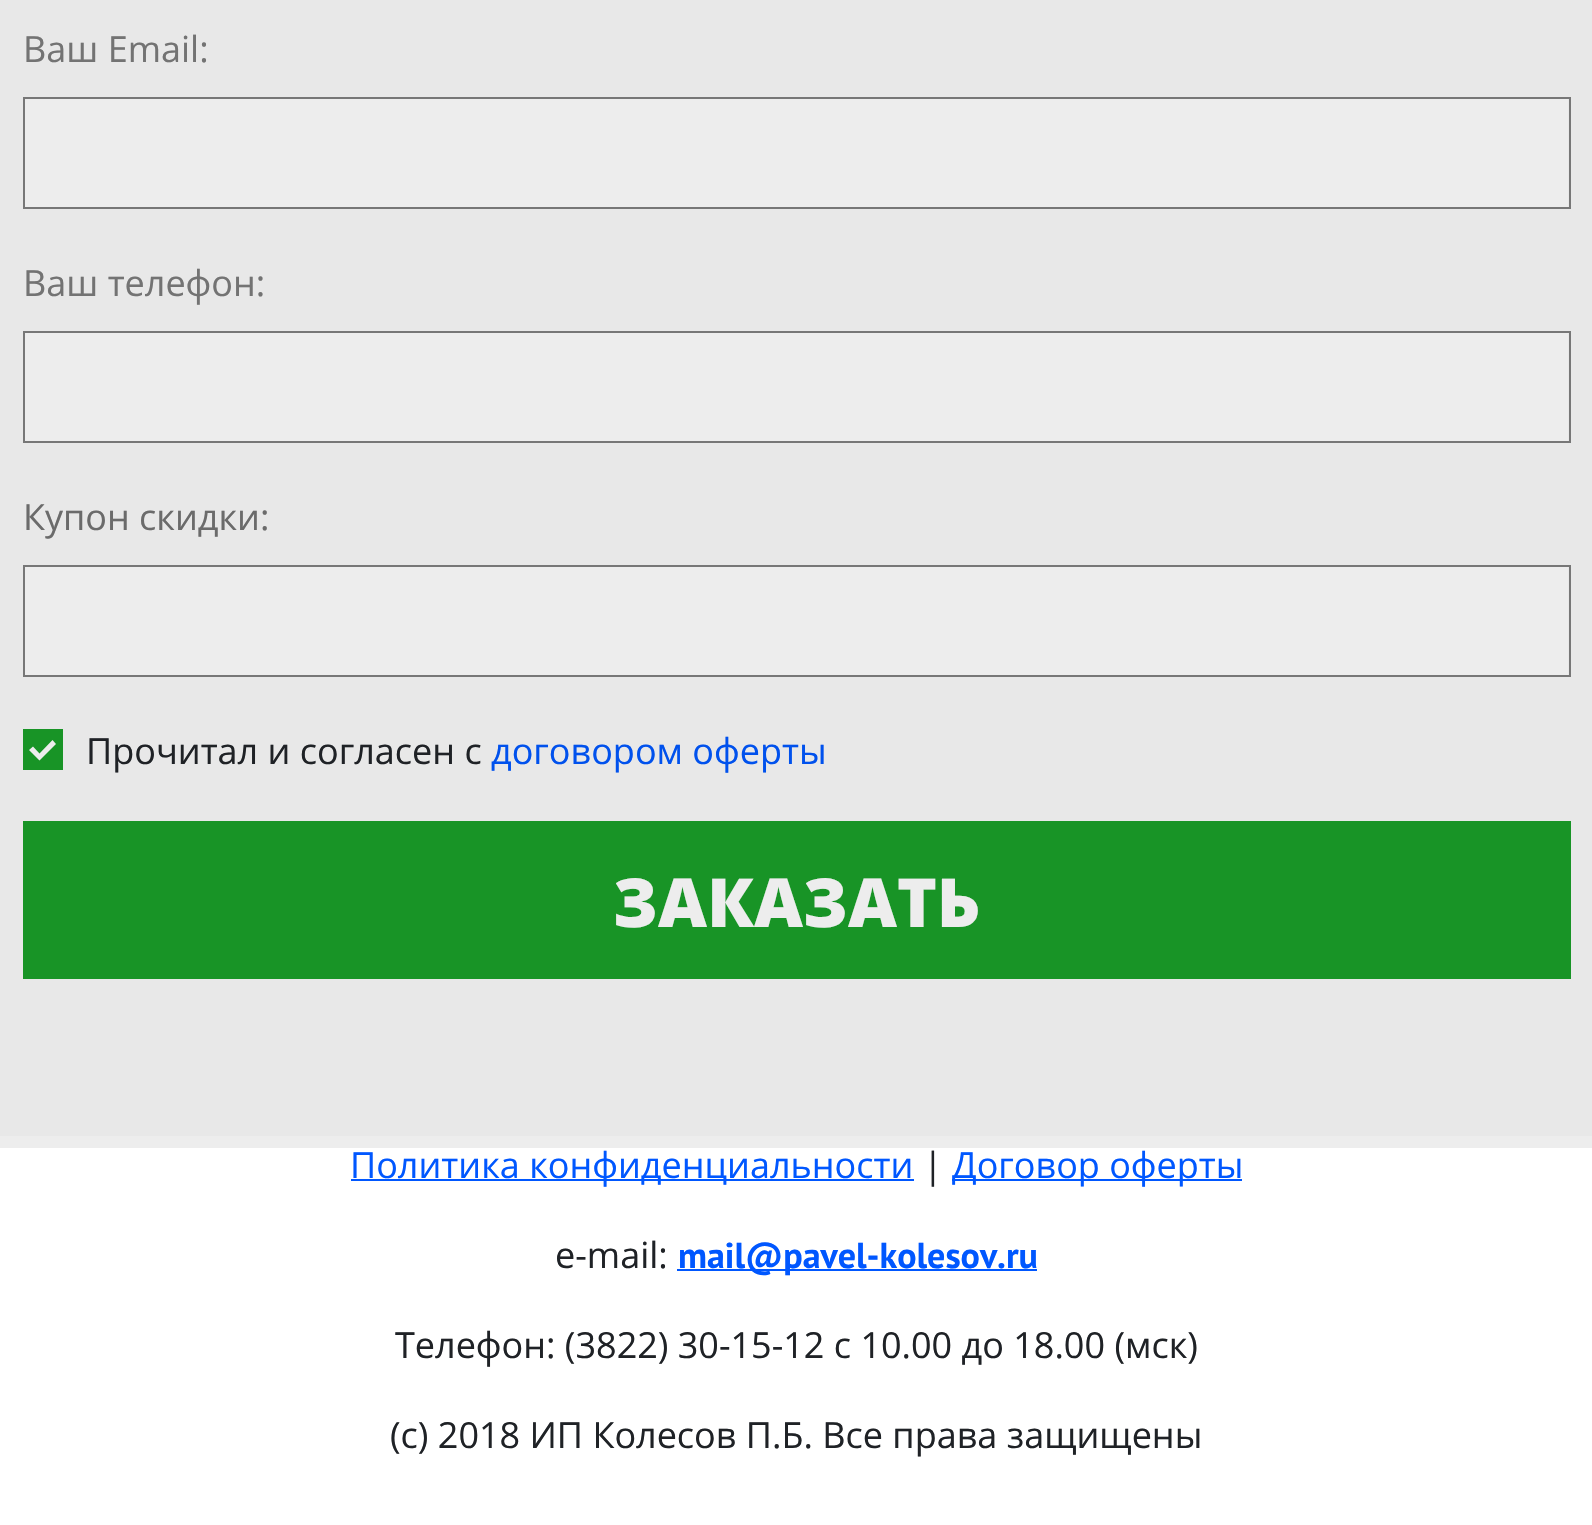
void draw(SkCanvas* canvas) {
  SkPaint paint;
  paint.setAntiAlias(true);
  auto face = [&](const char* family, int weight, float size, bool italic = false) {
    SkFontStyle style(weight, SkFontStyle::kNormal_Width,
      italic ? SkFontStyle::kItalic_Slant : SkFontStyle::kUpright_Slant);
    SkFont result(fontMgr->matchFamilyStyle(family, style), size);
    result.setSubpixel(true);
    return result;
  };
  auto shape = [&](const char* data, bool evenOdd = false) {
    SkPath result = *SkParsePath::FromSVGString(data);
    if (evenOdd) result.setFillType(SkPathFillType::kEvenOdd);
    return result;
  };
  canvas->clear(0xffffffff);
  {
    const struct { float x, y, w, h; SkColor color; } items[] = {
      {0, 1136, 1592, 12, 0xffededed},
      {0, 0, 1592, 1136, 0xffe8e8e8},
      {25, 99, 1543, 108, 0xffededed},
    };
    for (auto [x, y, w, h, color] : items) {
      paint.setColor(color);
      canvas->drawRect(SkRect::MakeXYWH(x, y, w, h), paint);
    }
  }
  paint.setStroke(true);
  paint.setStrokeWidth(2);
  paint.setColor(0xff777777);
  canvas->drawRect(SkRect::MakeXYWH(24, 98, 1546, 110), paint);
  paint.setStroke(false);
  paint.setColor(0xffededed);
  canvas->drawRect(SkRect::MakeXYWH(25, 333, 1543, 108), paint);
  paint.setStroke(true);
  paint.setColor(0xff777777);
  canvas->drawRect(SkRect::MakeXYWH(24, 332, 1546, 110), paint);
  paint.setStroke(false);
  paint.setColor(0xffededed);
  canvas->drawRect(SkRect::MakeXYWH(25, 567, 1543, 108), paint);
  paint.setStroke(true);
  paint.setColor(0xff777777);
  canvas->drawRect(SkRect::MakeXYWH(24, 566, 1546, 110), paint);
  paint.setStroke(false);
  paint.setColor(0xff189426);
  canvas->drawRect(SkRect::MakeXYWH(23, 729, 40, 41), paint);
  paint.setColor(0xffededed);
  canvas->drawPath(shape("M52.5 740L56 744L39.5 760.5L29 750L33 746.5L39.5 753.5Z"), paint);
  {
    const struct { float x, y, w, h; SkColor color; } items[] = {
      {23, 821, 1548, 158, 0xff189426},
      {351, 1179, 563, 2, 0xff0057ff},
      {952, 1179, 290, 2, 0xff0057ff},
      {677, 1269, 360, 2, 0xff0057ff},
    };
    for (auto [x, y, w, h, color] : items) {
      paint.setColor(color);
      canvas->drawRect(SkRect::MakeXYWH(x, y, w, h), paint);
    }
  }
  auto f0 = face("Open Sans", 400, 36);
  paint.setColor(0xff737373);
  canvas->drawString("Ваш Email:", 23, 62, f0, paint);
  canvas->drawString("Ваш телефон:", 23, 296, f0, paint);
  paint.setColor(0xff6b6b6b);
  canvas->drawString("Купон скидки:", 23, 530, f0, paint);
  paint.setColor(0xff1f2226);
  canvas->drawString("Прочитал и согласен с", 86, 764, f0, paint);
  paint.setColor(0xff0051ed);
  canvas->drawString("договором оферты", 491, 764, f0, paint);
  auto f1 = face("Open Sans", 800, 67.5f);
  paint.setColor(0xffededed);
  canvas->drawString("ЗАКАЗАТЬ", 613, 927, f1, paint);
  paint.setColor(0xff0057ff);
  canvas->drawString("Политика конфиденциальности", 350, 1178, f0, paint);
  paint.setColor(0xff1f2226);
  canvas->drawString("|", 923, 1178, f0, paint);
  paint.setColor(0xff0057ff);
  canvas->drawString("Договор оферты", 952, 1178, f0, paint);
  paint.setColor(0xff1f2226);
  canvas->drawString("e-mail:", 555, 1268, f0, paint);
  auto f2 = face("PT Sans", 700, 36);
  paint.setColor(0xff0057ff);
  canvas->drawString("mail@pavel-kolesov.ru", 678, 1268, f2, paint);
  paint.setColor(0xff1f2226);
  canvas->drawString("Телефон: (3822) 30-15-12 с 10.00 до 18.00 (мск)", 395, 1358, f0, paint);
  canvas->drawString("(с) 2018 ИП Колесов П.Б. Все права защищены", 390, 1448, f0, paint);
}
